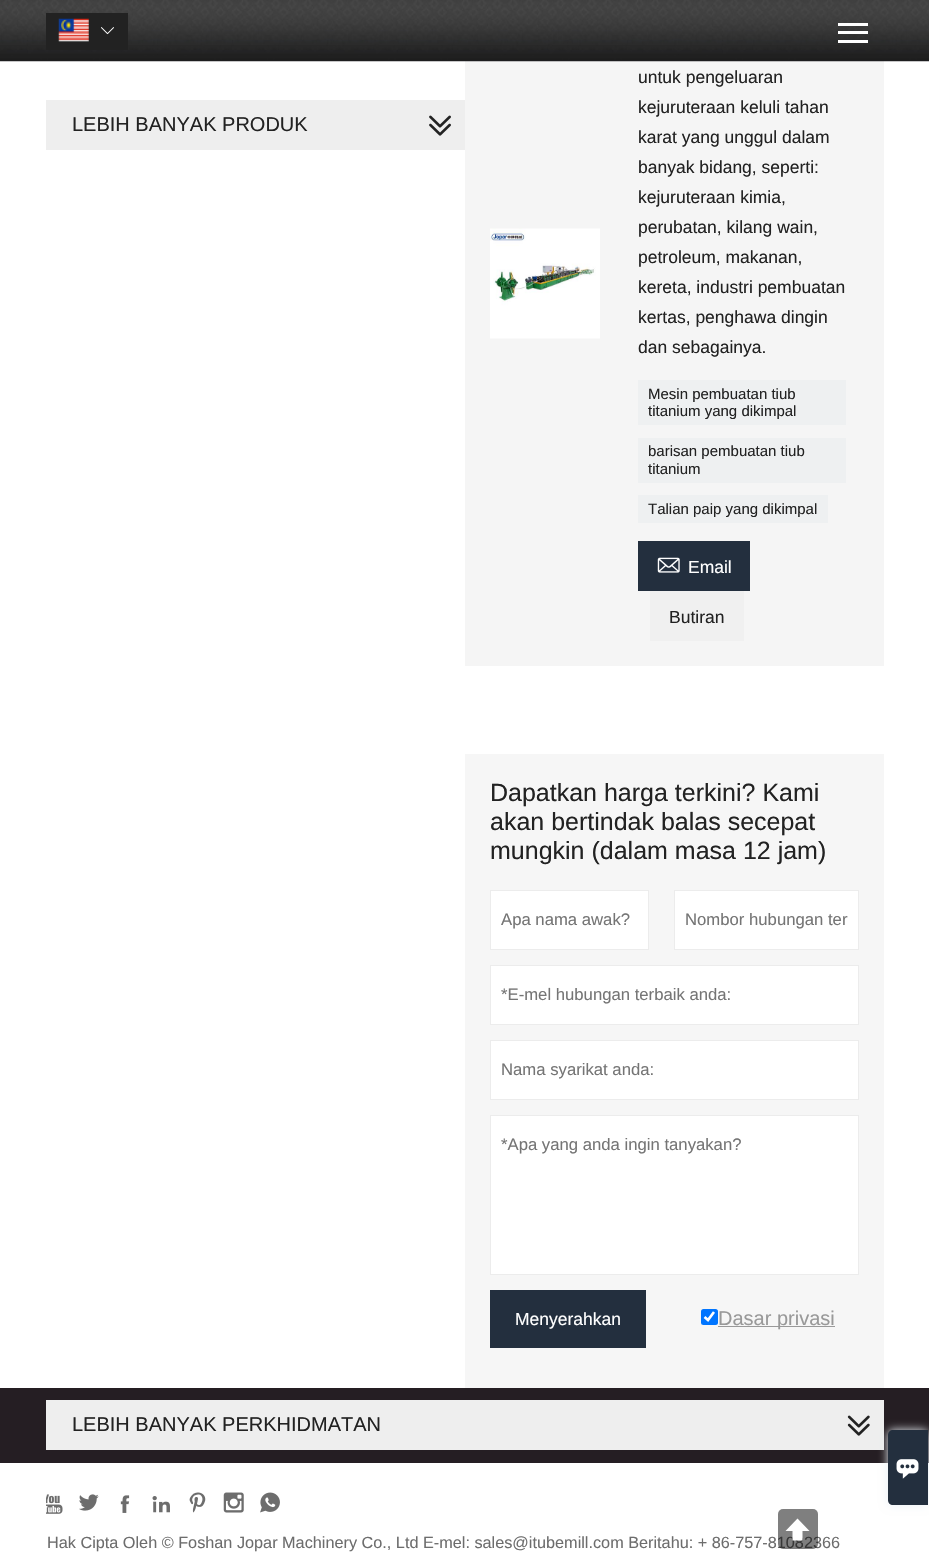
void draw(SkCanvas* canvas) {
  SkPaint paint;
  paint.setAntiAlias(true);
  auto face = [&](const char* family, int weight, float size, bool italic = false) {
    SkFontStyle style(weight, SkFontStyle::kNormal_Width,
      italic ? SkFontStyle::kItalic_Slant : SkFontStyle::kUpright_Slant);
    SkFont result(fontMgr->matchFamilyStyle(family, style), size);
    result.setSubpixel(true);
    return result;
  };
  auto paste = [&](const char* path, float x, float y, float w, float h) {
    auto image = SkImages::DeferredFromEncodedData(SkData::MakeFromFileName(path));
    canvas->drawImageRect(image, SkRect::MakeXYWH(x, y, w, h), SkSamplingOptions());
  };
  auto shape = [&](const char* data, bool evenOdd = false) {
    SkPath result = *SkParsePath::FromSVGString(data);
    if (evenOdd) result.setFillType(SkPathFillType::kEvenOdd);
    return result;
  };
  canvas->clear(0xffffffff);
  paint.setColor(0xfff5f5f5);
  canvas->drawRect(SkRect::MakeXYWH(465, 61, 419, 605), paint);
  paste("img/1.png", 0, 0, 929, 62);
  paint.setColor(0xff222222);
  canvas->drawRect(SkRect::MakeXYWH(46, 13, 82, 37), paint);
  paste("img/2.png", 58, 18, 31, 24);
  paste("img/3.png", 101, 27, 13, 8);
  {
    const struct { float x, y, w, h; SkColor color; } items[] = {
      {838, 31, 30, 3, 0xffffffff},
      {838, 23, 30, 3, 0xffffffff},
      {838, 40, 30, 3, 0xffffffff},
      {46, 100, 419, 50, 0xffeeeeee},
    };
    for (auto [x, y, w, h, color] : items) {
      paint.setColor(color);
      canvas->drawRect(SkRect::MakeXYWH(x, y, w, h), paint);
    }
  }
  paste("img/4.png", 429, 115, 22, 21);
  paste("img/5.png", 490, 228, 110, 111);
  {
    const struct { float x, y, w, h; SkColor color; } items[] = {
      {638, 380, 208, 45, 0xffeef0f1},
      {638, 438, 208, 45, 0xffeef0f1},
      {638, 495, 190, 28, 0xffeef0f1},
      {638, 541, 112, 50, 0xff232f3e},
    };
    for (auto [x, y, w, h, color] : items) {
      paint.setColor(color);
      canvas->drawRect(SkRect::MakeXYWH(x, y, w, h), paint);
    }
  }
  paste("img/6.png", 657, 557, 23, 16);
  paint.setColor(0xfff0f0f0);
  canvas->drawRect(SkRect::MakeXYWH(650, 591, 94, 50), paint);
  paint.setColor(0xfff6f6f6);
  canvas->drawRect(SkRect::MakeXYWH(465, 754, 419, 634), paint);
  paint.setColor(0xffffffff);
  canvas->drawRect(SkRect::MakeXYWH(490.5f, 890.5f, 158, 59), paint);
  paint.setStroke(true);
  paint.setStrokeWidth(1);
  paint.setColor(0xffececec);
  canvas->drawRect(SkRect::MakeXYWH(490.5f, 890.5f, 158, 59), paint);
  paint.setStroke(false);
  paint.setColor(0xffffffff);
  canvas->drawRect(SkRect::MakeXYWH(674.5f, 890.5f, 184, 59), paint);
  paint.setStroke(true);
  paint.setColor(0xffececec);
  canvas->drawRect(SkRect::MakeXYWH(674.5f, 890.5f, 184, 59), paint);
  paint.setStroke(false);
  paint.setColor(0xffffffff);
  canvas->drawRect(SkRect::MakeXYWH(490.5f, 965.5f, 368, 59), paint);
  paint.setStroke(true);
  paint.setColor(0xffececec);
  canvas->drawRect(SkRect::MakeXYWH(490.5f, 965.5f, 368, 59), paint);
  paint.setStroke(false);
  paint.setColor(0xffffffff);
  canvas->drawRect(SkRect::MakeXYWH(490.5f, 1040.5f, 368, 59), paint);
  paint.setStroke(true);
  paint.setColor(0xffececec);
  canvas->drawRect(SkRect::MakeXYWH(490.5f, 1040.5f, 368, 59), paint);
  paint.setStroke(false);
  paint.setColor(0xffffffff);
  canvas->drawRect(SkRect::MakeXYWH(490.5f, 1115.5f, 368, 159), paint);
  paint.setStroke(true);
  paint.setColor(0xffececec);
  canvas->drawRect(SkRect::MakeXYWH(490.5f, 1115.5f, 368, 159), paint);
  paint.setStroke(false);
  paint.setColor(0xff232f3e);
  canvas->drawRect(SkRect::MakeXYWH(490, 1290, 156, 58), paint);
  paint.setColor(0xff0075ff);
  canvas->drawRoundRect(SkRect::MakeXYWH(701, 1309, 17, 16), 2.5f, 2.5f, paint);
  paint.setStroke(true);
  paint.setStrokeWidth(2.6f);
  paint.setColor(0xffffffff);
  canvas->drawPath(shape("M704.5 1317L708 1320L714 1312"), paint);
  paint.setStroke(false);
  {
    const struct { float x, y, w, h; SkColor color; } items[] = {
      {718, 1326, 117, 1, 0xff999999},
      {0, 1388, 929, 75, 0xff251e23},
      {46, 1400, 838, 50, 0xffeeeeee},
    };
    for (auto [x, y, w, h, color] : items) {
      paint.setColor(color);
      canvas->drawRect(SkRect::MakeXYWH(x, y, w, h), paint);
    }
  }
  paste("img/7.png", 847, 1415, 23, 21);
  paste("img/8.png", 46, 1494, 17, 20);
  paste("img/9.png", 79, 1494, 20, 17);
  paste("img/10.png", 120, 1495, 10, 18);
  paste("img/11.png", 152, 1496, 18, 17);
  paste("img/12.png", 189, 1492, 17, 21);
  paste("img/13.png", 223, 1492, 21, 21);
  paste("img/14.png", 260, 1492, 20, 21);
  paint.setColor(0xffeaf0f6);
  paint.setMaskFilter(SkMaskFilter::MakeBlur(kNormal_SkBlurStyle, 5));
  canvas->drawRoundRect(SkRect::MakeXYWH(888, 1430, 40, 75), 5, 5, paint);
  paint.setMaskFilter(nullptr);
  paint.setColor(0xff232f3e);
  canvas->drawPath(shape("M893 1430H928V1505H893C890 1505 888 1503 888 1500V1435C888 1432 890 1430 893 1430Z"), paint);
  paste("img/15.png", 896, 1459, 23, 20);
  auto f0 = face("Liberation Sans", 400, 20);
  paint.setColor(0xff222222);
  canvas->drawString("LEBIH BANYAK PRODUK", 72, 131, f0, paint);
  auto f1 = face("Liberation Sans", 400, 17.5f);
  {
    const struct { const char* s; float x, y; } items[] = {
      {"untuk pengeluaran", 638, 83},
      {"kejuruteraan keluli tahan", 638, 113},
      {"karat yang unggul dalam", 638, 143},
      {"banyak bidang, seperti:", 638, 173},
      {"kejuruteraan kimia,", 638, 203},
      {"perubatan, kilang wain,", 638, 233},
      {"petroleum, makanan,", 638, 263},
      {"kereta, industri pembuatan", 638, 293},
      {"kertas, penghawa dingin", 638, 323},
      {"dan sebagainya.", 638, 353},
    };
    for (auto [s, x, y] : items) {
      canvas->drawString(s, x, y, f1, paint);
    }
  }
  auto f2 = face("Liberation Sans", 400, 15);
  {
    const struct { const char* s; float x, y; } items[] = {
      {"Mesin pembuatan tiub", 648, 399},
      {"titanium yang dikimpal", 648, 416},
      {"barisan pembuatan tiub", 648, 456},
      {"titanium", 648, 474},
      {"Talian paip yang dikimpal", 648, 514},
    };
    for (auto [s, x, y] : items) {
      canvas->drawString(s, x, y, f2, paint);
    }
  }
  paint.setColor(0xffffffff);
  canvas->drawString("Email", 688, 573, f1, paint);
  paint.setColor(0xff222222);
  canvas->drawString("Butiran", 669, 623, f1, paint);
  auto f3 = face("Liberation Sans", 400, 25);
  {
    const struct { const char* s; float x, y; } items[] = {
      {"Dapatkan harga terkini? Kami", 490, 801},
      {"akan bertindak balas secepat", 490, 830},
      {"mungkin (dalam masa 12 jam)", 490, 859},
    };
    for (auto [s, x, y] : items) {
      canvas->drawString(s, x, y, f3, paint);
    }
  }
  auto f4 = face("Liberation Sans", 400, 16.7f);
  paint.setColor(0xff757575);
  {
    const struct { const char* s; float x, y; } items[] = {
      {"Apa nama awak?", 501, 925},
      {"Nombor hubungan ter", 685, 925},
      {"*E-mel hubungan terbaik anda:", 501, 1000},
      {"Nama syarikat anda:", 501, 1075},
      {"*Apa yang anda ingin tanyakan?", 501, 1150},
    };
    for (auto [s, x, y] : items) {
      canvas->drawString(s, x, y, f4, paint);
    }
  }
  paint.setColor(0xffffffff);
  canvas->drawString("Menyerahkan", 515, 1325, f1, paint);
  paint.setColor(0xff999999);
  canvas->drawString("Dasar privasi", 718, 1325, f0, paint);
  paint.setColor(0xff222222);
  canvas->drawString("LEBIH BANYAK PERKHIDMATAN", 72, 1431, f0, paint);
  auto f5 = face("Liberation Sans", 400, 16.25f);
  paint.setColor(0xff6d6d6d);
  canvas->drawString("Hak Cipta Oleh © Foshan Jopar Machinery Co., Ltd E-mel: sales@itubemill.com Beritahu: + 86-757-81082366", 47, 1548, f5, paint);
  paint.setColor(0x80000000);
  canvas->drawRoundRect(SkRect::MakeXYWH(778, 1509, 40, 40), 5, 5, paint);
  paint.setColor(0xffffffff);
  canvas->drawPath(shape("M809.5 1531L797.5 1518.5L785.5 1531H792.5V1540.5H802.5V1531Z"), paint);
}
